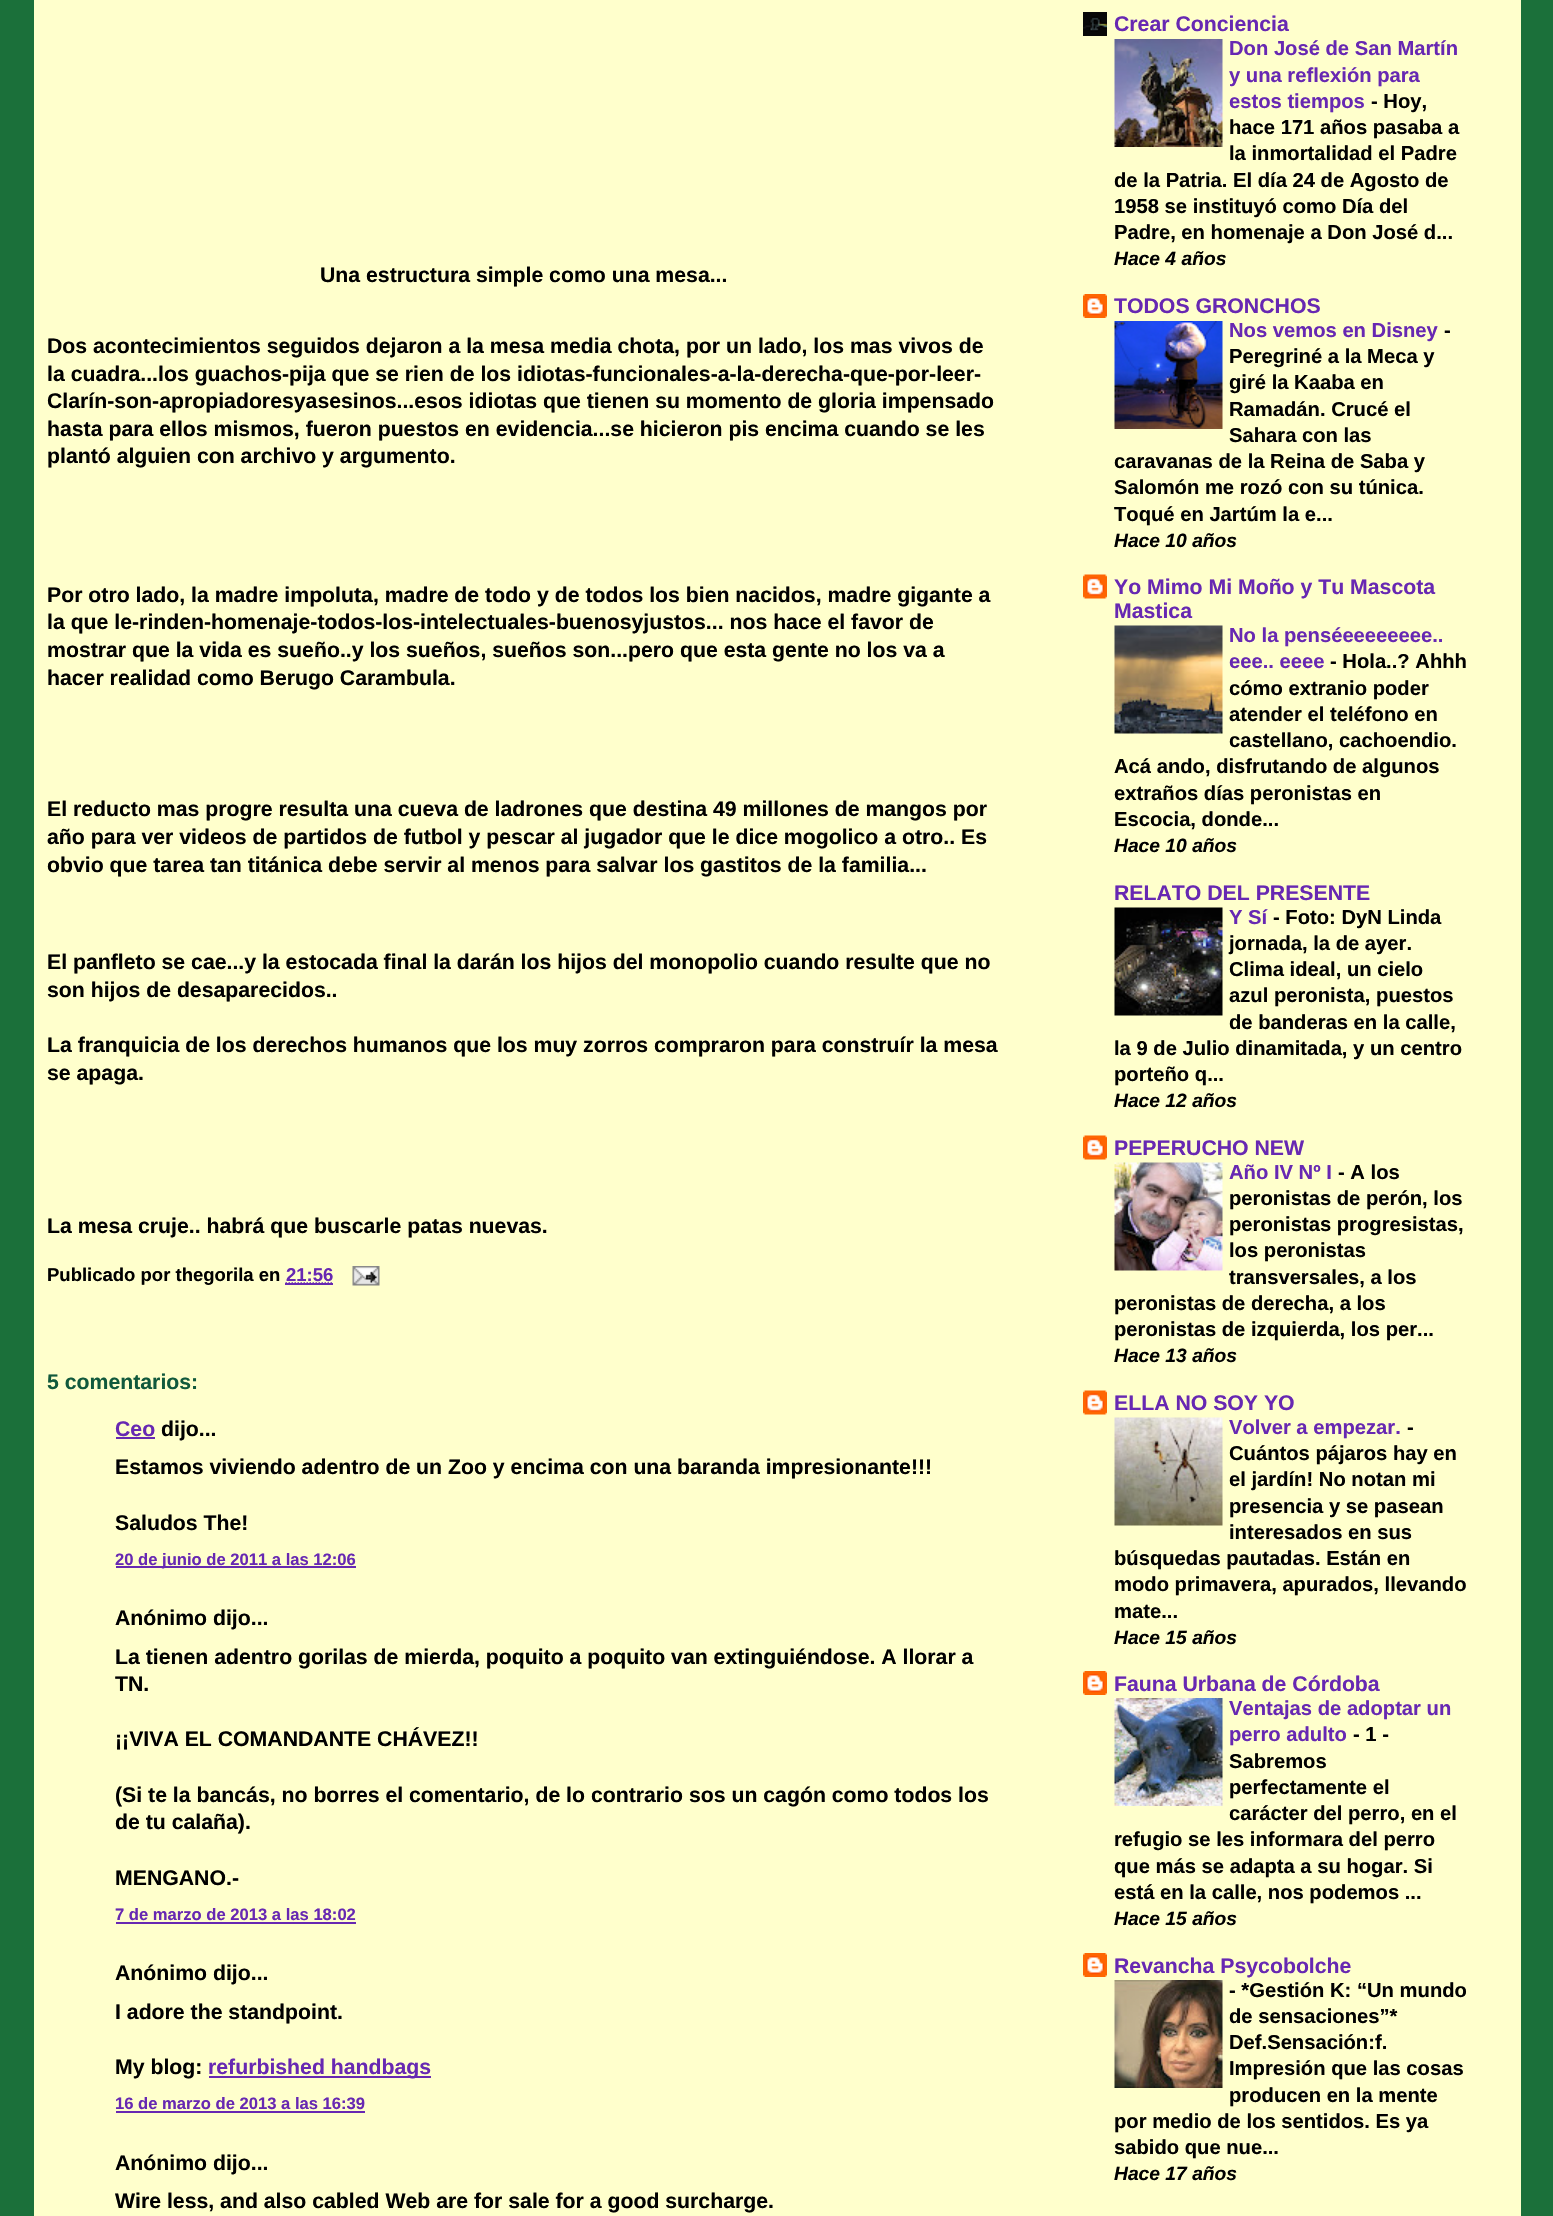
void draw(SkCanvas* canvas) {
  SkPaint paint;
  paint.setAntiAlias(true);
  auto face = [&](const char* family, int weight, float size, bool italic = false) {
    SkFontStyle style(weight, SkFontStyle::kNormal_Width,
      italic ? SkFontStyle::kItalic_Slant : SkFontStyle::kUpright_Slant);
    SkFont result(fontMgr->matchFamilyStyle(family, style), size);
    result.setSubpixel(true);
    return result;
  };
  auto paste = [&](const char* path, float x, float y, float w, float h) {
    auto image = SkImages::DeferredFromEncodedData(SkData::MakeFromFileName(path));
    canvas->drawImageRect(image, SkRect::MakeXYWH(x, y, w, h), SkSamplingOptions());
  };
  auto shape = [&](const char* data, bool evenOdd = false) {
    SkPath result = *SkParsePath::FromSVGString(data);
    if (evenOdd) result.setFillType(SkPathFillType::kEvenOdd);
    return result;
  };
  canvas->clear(0xff1b703a);
  paint.setColor(0xffffffcc);
  canvas->drawRect(SkRect::MakeXYWH(34, 0, 1487, 2216), paint);
  paint.setStroke(true);
  paint.setStrokeWidth(1.5f);
  paint.setColor(0xff6728b2);
  paint.setPathEffect(SkDashPathEffect::Make({{1.5f, 1.5f}}, 0));
  canvas->drawPath(shape("M285.5 1283H333"), paint);
  paint.setPathEffect(nullptr);
  paint.setStroke(false);
  canvas->drawRect(SkRect::MakeXYWH(285, 1283, 48, 2), paint);
  paste("img/1.png", 352, 1266, 28, 20);
  {
    const struct { float x, y, w, h; SkColor color; } items[] = {
      {116, 1437, 39, 2, 0xff6728b2},
      {116, 1566, 240, 2, 0xff6728b2},
      {116, 1922, 240, 2, 0xff6728b2},
      {209, 2076, 222, 2, 0xff6728b2},
      {116, 2111, 249, 2, 0xff6728b2},
    };
    for (auto [x, y, w, h, color] : items) {
      paint.setColor(color);
      canvas->drawRect(SkRect::MakeXYWH(x, y, w, h), paint);
    }
  }
  paste("img/2.png", 1083, 12, 24, 24);
  paste("img/3.png", 1114, 39, 109, 108);
  paste("img/4.png", 1083, 294, 24, 24);
  paste("img/5.png", 1114, 321, 109, 108);
  paste("img/6.png", 1083, 574, 24, 25);
  paste("img/7.png", 1114, 625, 109, 109);
  paste("img/8.png", 1114, 907, 109, 109);
  paste("img/6.png", 1083, 1135, 24, 25);
  paste("img/9.png", 1114, 1162, 109, 109);
  paste("img/6.png", 1083, 1390, 24, 25);
  paste("img/10.png", 1114, 1417, 109, 109);
  paste("img/4.png", 1083, 1671, 24, 24);
  paste("img/11.png", 1114, 1698, 109, 108);
  paste("img/4.png", 1083, 1953, 24, 24);
  paste("img/12.png", 1114, 1980, 109, 108);
  auto f0 = face("Liberation Sans", 700, 21.25f);
  paint.setColor(0xff000000);
  {
    const struct { const char* s; float x, y; } items[] = {
      {"Una estructura simple como una mesa...", 320, 282},
      {"Dos acontecimientos seguidos dejaron a la mesa media chota, por un lado, los mas vivos de", 47, 353},
      {"la cuadra...los guachos-pija que se rien de los idiotas-funcionales-a-la-derecha-que-por-leer-", 47, 381},
      {"Clarín-son-apropiadoresyasesinos...esos idiotas que tienen su momento de gloria impensado", 47, 408},
      {"hasta para ellos mismos, fueron puestos en evidencia...se hicieron pis encima cuando se les", 47, 436},
      {"plantó alguien con archivo y argumento.", 47, 463},
      {"Por otro lado, la madre impoluta, madre de todo y de todos los bien nacidos, madre gigante a", 47, 602},
      {"la que le-rinden-homenaje-todos-los-intelectuales-buenosyjustos... nos hace el favor de", 47, 629},
      {"mostrar que la vida es sueño..y los sueños, sueños son...pero que esta gente no los va a", 47, 657},
      {"hacer realidad como Berugo Carambula.", 47, 685},
      {"El reducto mas progre resulta una cueva de ladrones que destina 49 millones de mangos por", 47, 816},
      {"año para ver videos de partidos de futbol y pescar al jugador que le dice mogolico a otro.. Es", 47, 844},
      {"obvio que tarea tan titánica debe servir al menos para salvar los gastitos de la familia...", 47, 872},
      {"El panfleto se cae...y la estocada final la darán los hijos del monopolio cuando resulte que no", 47, 969},
      {"son hijos de desaparecidos..", 47, 997},
      {"La franquicia de los derechos humanos que los muy zorros compraron para construír la mesa", 47, 1052},
      {"se apaga.", 47, 1080},
      {"La mesa cruje.. habrá que buscarle patas nuevas.", 47, 1233},
    };
    for (auto [s, x, y] : items) {
      canvas->drawString(s, x, y, f0, paint);
    }
  }
  auto f1 = face("Liberation Sans", 700, 18.5f);
  canvas->drawString("Publicado por thegorila en", 47, 1281, f1, paint);
  paint.setColor(0xff6728b2);
  canvas->drawString("21:56", 286, 1281, f1, paint);
  paint.setColor(0xff11593c);
  canvas->drawString("5 comentarios:", 47, 1389, f0, paint);
  paint.setColor(0xff6728b2);
  canvas->drawString("Ceo", 115, 1436, f0, paint);
  paint.setColor(0xff000000);
  {
    const struct { const char* s; float x, y; } items[] = {
      {"dijo...", 161, 1436},
      {"Estamos viviendo adentro de un", 115, 1474},
      {"Zoo y encima con una baranda impresionante!!!", 448, 1474},
      {"Saludos The!", 115, 1530},
    };
    for (auto [s, x, y] : items) {
      canvas->drawString(s, x, y, f0, paint);
    }
  }
  auto f2 = face("Liberation Sans", 700, 16.6f);
  paint.setColor(0xff6728b2);
  canvas->drawString("20 de junio de 2011 a las 12:06", 115, 1565, f2, paint);
  paint.setColor(0xff000000);
  {
    const struct { const char* s; float x, y; } items[] = {
      {"Anónimo dijo...", 115, 1625},
      {"La tienen adentro gorilas de mierda, poquito a poquito van extinguiéndose. A llorar a", 115, 1664},
      {"TN.", 115, 1691},
      {"¡¡VIVA EL COMANDANTE CHÁVEZ!!", 115, 1746},
      {"(Si te la bancás, no borres el comentario, de lo contrario sos un cagón como todos los", 115, 1802},
      {"de tu calaña).", 115, 1829},
      {"MENGANO.-", 115, 1885},
    };
    for (auto [s, x, y] : items) {
      canvas->drawString(s, x, y, f0, paint);
    }
  }
  paint.setColor(0xff6728b2);
  canvas->drawString("7 de marzo de 2013 a las 18:02", 115, 1920, f2, paint);
  paint.setColor(0xff000000);
  {
    const struct { const char* s; float x, y; } items[] = {
      {"Anónimo dijo...", 115, 1980},
      {"I adore the standpoint.", 115, 2019},
      {"My blog:", 115, 2074},
    };
    for (auto [s, x, y] : items) {
      canvas->drawString(s, x, y, f0, paint);
    }
  }
  paint.setColor(0xff6728b2);
  canvas->drawString("refurbished handbags", 208, 2074, f0, paint);
  canvas->drawString("16 de marzo de 2013 a las 16:39", 115, 2109, f2, paint);
  paint.setColor(0xff000000);
  canvas->drawString("Anónimo dijo...", 115, 2170, f0, paint);
  canvas->drawString("Wire less, and also cabled Web are for sale for a good surcharge.", 115, 2208, f0, paint);
  paint.setColor(0xff6728b2);
  canvas->drawString("Crear Conciencia", 1114, 31, f0, paint);
  auto f3 = face("Liberation Sans", 700, 20.2f);
  {
    const struct { const char* s; float x, y; } items[] = {
      {"Don José de San Martín", 1229, 55},
      {"y una reflexión para", 1229, 82},
      {"estos tiempos", 1229, 108},
    };
    for (auto [s, x, y] : items) {
      canvas->drawString(s, x, y, f3, paint);
    }
  }
  paint.setColor(0xff000000);
  {
    const struct { const char* s; float x, y; } items[] = {
      {"- Hoy,", 1371, 108},
      {"hace 171 años pasaba a", 1229, 134},
      {"la inmortalidad el Padre", 1229, 160},
      {"de la Patria. El día 24 de Agosto de", 1114, 187},
      {"1958 se instituyó como Día del", 1114, 213},
      {"Padre, en homenaje a Don José d...", 1114, 239},
    };
    for (auto [s, x, y] : items) {
      canvas->drawString(s, x, y, f3, paint);
    }
  }
  auto f4 = face("Liberation Sans", 700, 19.25f, true);
  canvas->drawString("Hace 4 años", 1114, 265, f4, paint);
  paint.setColor(0xff6728b2);
  canvas->drawString("TODOS GRONCHOS", 1114, 313, f0, paint);
  canvas->drawString("Nos vemos en Disney", 1229, 337, f3, paint);
  paint.setColor(0xff000000);
  {
    const struct { const char* s; float x, y; } items[] = {
      {"-", 1444, 337},
      {"Peregriné a la Meca y", 1229, 363},
      {"giré la Kaaba en", 1229, 389},
      {"Ramadán. Crucé el", 1229, 416},
      {"Sahara con las", 1229, 442},
      {"caravanas de la Reina de Saba y", 1114, 468},
      {"Salomón me rozó con su túnica.", 1114, 494},
      {"Toqué en Jartúm la e...", 1114, 521},
    };
    for (auto [s, x, y] : items) {
      canvas->drawString(s, x, y, f3, paint);
    }
  }
  canvas->drawString("Hace 10 años", 1114, 547, f4, paint);
  paint.setColor(0xff6728b2);
  canvas->drawString("Yo Mimo Mi Moño y Tu Mascota", 1114, 594, f0, paint);
  canvas->drawString("Mastica", 1114, 618, f0, paint);
  canvas->drawString("No la penséeeeeeeee..", 1229, 642, f3, paint);
  canvas->drawString("eee.. eeee", 1229, 668, f3, paint);
  paint.setColor(0xff000000);
  {
    const struct { const char* s; float x, y; } items[] = {
      {"- Hola..? Ahhh", 1330, 668},
      {"cómo extranio poder", 1229, 695},
      {"atender el teléfono en", 1229, 721},
      {"castellano, cachoendio.", 1229, 747},
      {"Acá ando, disfrutando de algunos", 1114, 773},
      {"extraños días peronistas en", 1114, 800},
      {"Escocia, donde...", 1114, 826},
    };
    for (auto [s, x, y] : items) {
      canvas->drawString(s, x, y, f3, paint);
    }
  }
  canvas->drawString("Hace 10 años", 1114, 852, f4, paint);
  paint.setColor(0xff6728b2);
  canvas->drawString("RELATO DEL PRESENTE", 1114, 900, f0, paint);
  canvas->drawString("Y Sí", 1229, 924, f3, paint);
  paint.setColor(0xff000000);
  {
    const struct { const char* s; float x, y; } items[] = {
      {"- Foto: DyN Linda", 1273, 924},
      {"jornada, la de ayer.", 1229, 950},
      {"Clima ideal, un cielo", 1229, 976},
      {"azul peronista, puestos", 1229, 1002},
      {"de banderas en la calle,", 1229, 1029},
      {"la 9 de Julio dinamitada, y un centro", 1114, 1055},
      {"porteño q...", 1114, 1081},
    };
    for (auto [s, x, y] : items) {
      canvas->drawString(s, x, y, f3, paint);
    }
  }
  canvas->drawString("Hace 12 años", 1114, 1107, f4, paint);
  paint.setColor(0xff6728b2);
  canvas->drawString("PEPERUCHO NEW", 1114, 1155, f0, paint);
  canvas->drawString("Año IV Nº I", 1229, 1179, f3, paint);
  paint.setColor(0xff000000);
  {
    const struct { const char* s; float x, y; } items[] = {
      {"- A los", 1338, 1179},
      {"peronistas de perón, los", 1229, 1205},
      {"peronistas progresistas,", 1229, 1231},
      {"los peronistas", 1229, 1257},
      {"transversales, a los", 1229, 1284},
      {"peronistas de derecha, a los", 1114, 1310},
      {"peronistas de izquierda, los per...", 1114, 1336},
    };
    for (auto [s, x, y] : items) {
      canvas->drawString(s, x, y, f3, paint);
    }
  }
  canvas->drawString("Hace 13 años", 1114, 1362, f4, paint);
  paint.setColor(0xff6728b2);
  canvas->drawString("ELLA NO SOY YO", 1114, 1410, f0, paint);
  canvas->drawString("Volver a empezar.", 1229, 1434, f3, paint);
  paint.setColor(0xff000000);
  {
    const struct { const char* s; float x, y; } items[] = {
      {"-", 1407, 1434},
      {"Cuántos pájaros hay en", 1229, 1460},
      {"el jardín! No notan mi", 1229, 1486},
      {"presencia y se pasean", 1229, 1513},
      {"interesados en sus", 1229, 1539},
      {"búsquedas pautadas. Están en", 1114, 1565},
      {"modo primavera, apurados, llevando", 1114, 1591},
      {"mate...", 1114, 1618},
    };
    for (auto [s, x, y] : items) {
      canvas->drawString(s, x, y, f3, paint);
    }
  }
  canvas->drawString("Hace 15 años", 1114, 1644, f4, paint);
  paint.setColor(0xff6728b2);
  canvas->drawString("Fauna Urbana de Córdoba", 1114, 1691, f0, paint);
  canvas->drawString("Ventajas de adoptar un", 1229, 1715, f3, paint);
  canvas->drawString("perro adulto", 1229, 1741, f3, paint);
  paint.setColor(0xff000000);
  {
    const struct { const char* s; float x, y; } items[] = {
      {"- 1 -", 1353, 1741},
      {"Sabremos", 1229, 1768},
      {"perfectamente el", 1229, 1794},
      {"carácter del perro, en el", 1229, 1820},
      {"refugio se les informara del perro", 1114, 1846},
      {"que más se adapta a su hogar. Si", 1114, 1873},
      {"está en la calle, nos podemos ...", 1114, 1899},
    };
    for (auto [s, x, y] : items) {
      canvas->drawString(s, x, y, f3, paint);
    }
  }
  canvas->drawString("Hace 15 años", 1114, 1925, f4, paint);
  paint.setColor(0xff6728b2);
  canvas->drawString("Revancha Psycobolche", 1114, 1973, f0, paint);
  paint.setColor(0xff000000);
  {
    const struct { const char* s; float x, y; } items[] = {
      {"- *Gestión K: “Un mundo", 1229, 1997},
      {"de sensaciones”*", 1229, 2023},
      {"Def.Sensación:f.", 1229, 2049},
      {"Impresión que las cosas", 1229, 2075},
      {"producen en la mente", 1229, 2102},
      {"por medio de los sentidos. Es ya", 1114, 2128},
      {"sabido que nue...", 1114, 2154},
    };
    for (auto [s, x, y] : items) {
      canvas->drawString(s, x, y, f3, paint);
    }
  }
  canvas->drawString("Hace 17 años", 1114, 2180, f4, paint);
}
